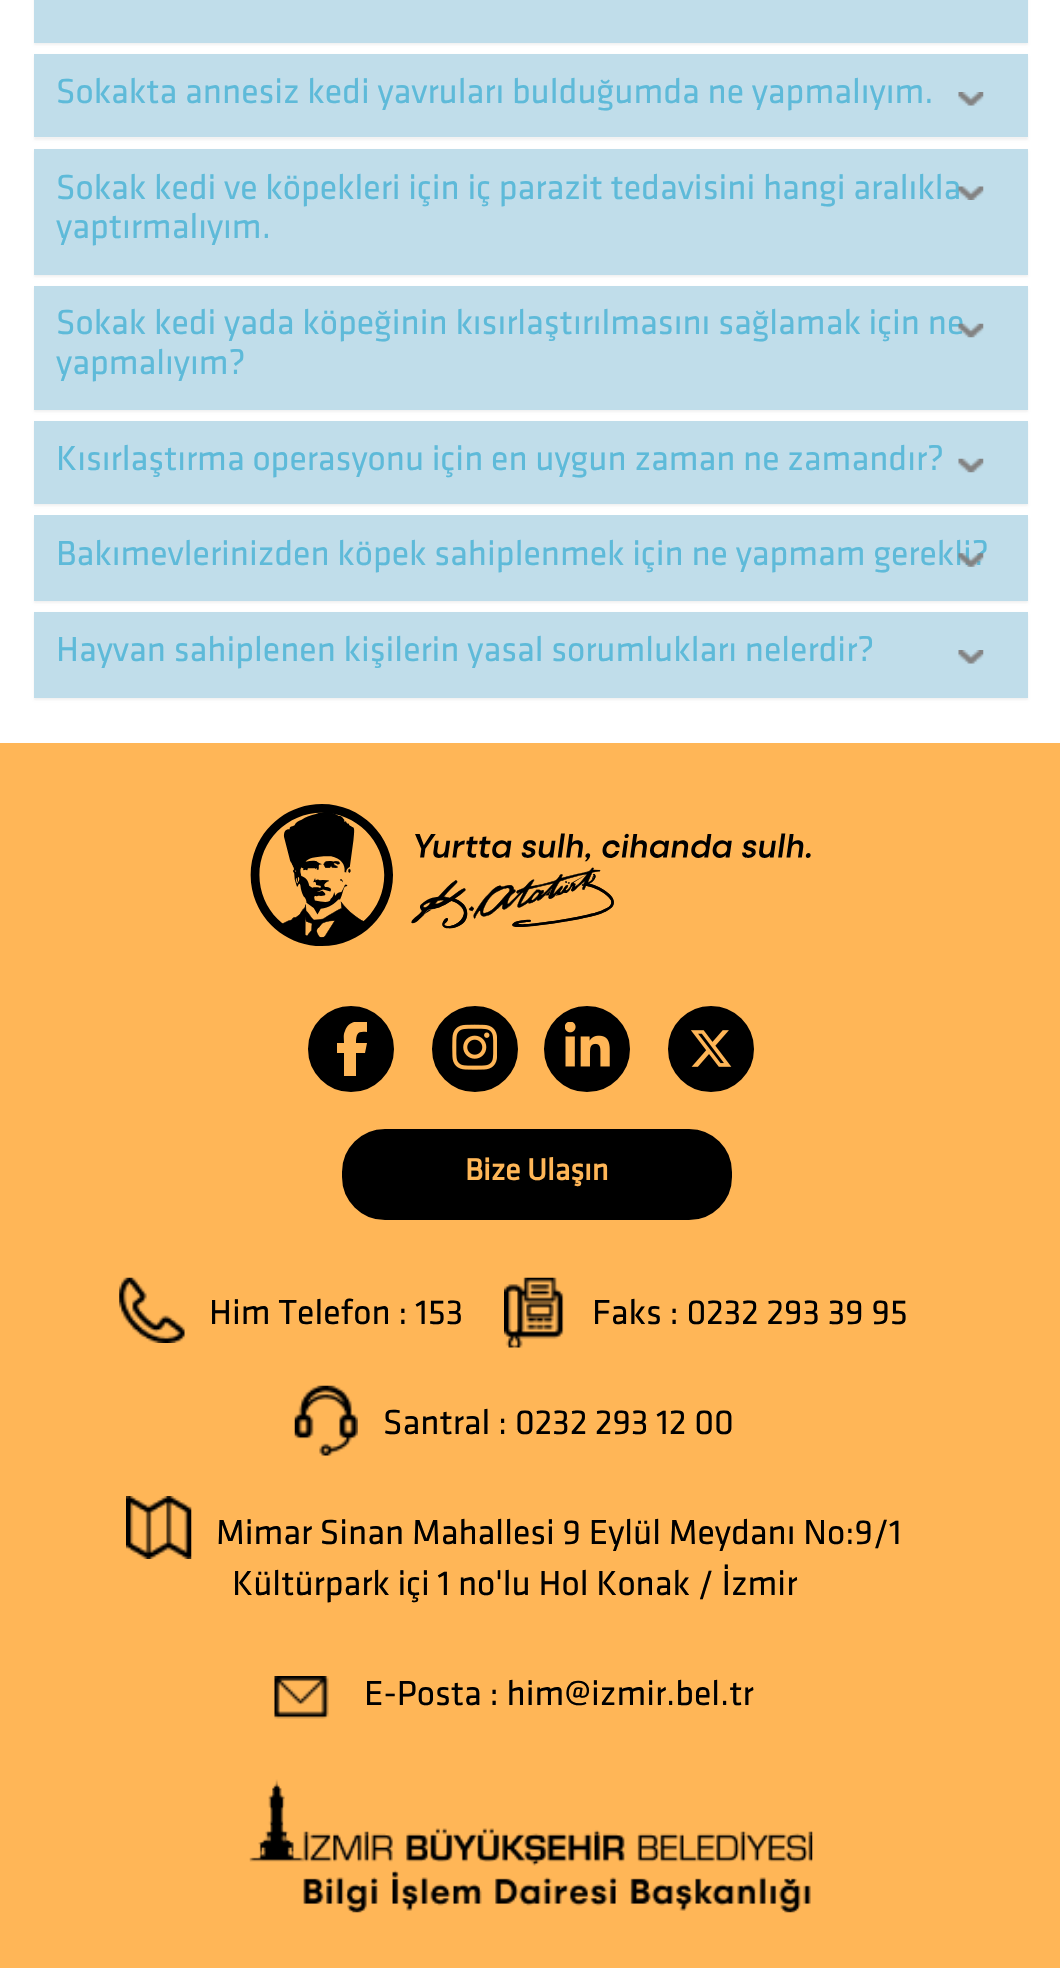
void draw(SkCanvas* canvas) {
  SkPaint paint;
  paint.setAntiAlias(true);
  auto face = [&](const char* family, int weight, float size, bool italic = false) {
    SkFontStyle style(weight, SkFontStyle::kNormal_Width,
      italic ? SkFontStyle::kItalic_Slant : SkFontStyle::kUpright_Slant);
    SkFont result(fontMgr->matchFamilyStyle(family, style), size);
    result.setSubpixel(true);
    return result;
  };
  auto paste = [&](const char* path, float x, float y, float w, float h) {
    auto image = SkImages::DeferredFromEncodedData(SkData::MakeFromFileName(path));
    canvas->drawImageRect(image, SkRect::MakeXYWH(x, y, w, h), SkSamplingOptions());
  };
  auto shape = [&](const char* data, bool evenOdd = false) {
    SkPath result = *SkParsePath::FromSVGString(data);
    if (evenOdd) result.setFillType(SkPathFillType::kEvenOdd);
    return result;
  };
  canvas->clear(0xffffffff);
  paint.setColor(0x0d000000);
  paint.setMaskFilter(SkMaskFilter::MakeBlur(kNormal_SkBlurStyle, 1));
  canvas->drawRect(SkRect::MakeXYWH(34, -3, 994, 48), paint);
  paint.setMaskFilter(nullptr);
  paint.setColor(0xffc0ddea);
  canvas->drawRect(SkRect::MakeXYWH(34, 0, 994, 43), paint);
  paint.setColor(0x0d000000);
  paint.setMaskFilter(SkMaskFilter::MakeBlur(kNormal_SkBlurStyle, 1));
  canvas->drawRect(SkRect::MakeXYWH(34, 56, 994, 84), paint);
  paint.setMaskFilter(nullptr);
  paint.setColor(0xffc0ddea);
  canvas->drawRect(SkRect::MakeXYWH(34, 54, 994, 83), paint);
  paste("img/1.png", 958, 92, 26, 14);
  paint.setColor(0x0d000000);
  paint.setMaskFilter(SkMaskFilter::MakeBlur(kNormal_SkBlurStyle, 1));
  canvas->drawRect(SkRect::MakeXYWH(34, 151, 994, 126), paint);
  paint.setMaskFilter(nullptr);
  paint.setColor(0xffc0ddea);
  canvas->drawRect(SkRect::MakeXYWH(34, 149, 994, 126), paint);
  paint.setColor(0x0d000000);
  paint.setMaskFilter(SkMaskFilter::MakeBlur(kNormal_SkBlurStyle, 1));
  canvas->drawRect(SkRect::MakeXYWH(34, 288, 994, 124), paint);
  paint.setMaskFilter(nullptr);
  paint.setColor(0xffc0ddea);
  canvas->drawRect(SkRect::MakeXYWH(34, 286, 994, 124), paint);
  paint.setColor(0x0d000000);
  paint.setMaskFilter(SkMaskFilter::MakeBlur(kNormal_SkBlurStyle, 1));
  canvas->drawRect(SkRect::MakeXYWH(34, 423, 994, 83), paint);
  paint.setMaskFilter(nullptr);
  paint.setColor(0xffc0ddea);
  canvas->drawRect(SkRect::MakeXYWH(34, 421, 994, 83), paint);
  paste("img/4.png", 958, 458, 26, 15);
  paint.setColor(0x0d000000);
  paint.setMaskFilter(SkMaskFilter::MakeBlur(kNormal_SkBlurStyle, 1));
  canvas->drawRect(SkRect::MakeXYWH(34, 518, 994, 85), paint);
  paint.setMaskFilter(nullptr);
  paint.setColor(0xffc0ddea);
  canvas->drawRect(SkRect::MakeXYWH(34, 515, 994, 86), paint);
  paint.setColor(0x0d000000);
  paint.setMaskFilter(SkMaskFilter::MakeBlur(kNormal_SkBlurStyle, 1));
  canvas->drawRect(SkRect::MakeXYWH(34, 614, 994, 86), paint);
  paint.setMaskFilter(nullptr);
  paint.setColor(0xffc0ddea);
  canvas->drawRect(SkRect::MakeXYWH(34, 612, 994, 86), paint);
  paste("img/1.png", 958, 650, 26, 14);
  paint.setColor(0xffffb657);
  canvas->drawRect(SkRect::MakeXYWH(0, 743, 1060, 1225), paint);
  paste("img/6.png", 250, 804, 561, 142);
  paint.setColor(0xff000000);
  canvas->drawCircle(351, 1049, 44, paint);
  paint.setStroke(true);
  paint.setStrokeWidth(2);
  paint.setColor(0xffffb657);
  canvas->drawCircle(351, 1049, 44, paint);
  canvas->save();
  canvas->clipRect(SkRect::MakeXYWH(335, 1022, 34, 54));
  paint.setStroke(false);
  canvas->drawPath(shape("M344 1053V1076H356V1053H365L367 1043H356C356 1033 358 1031 367 1032V1022C359 1020 348 1021 345 1031C343 1035 344 1039 344 1043H337V1053Z"), paint);
  canvas->restore();
  paint.setColor(0xff000000);
  canvas->drawCircle(475, 1049, 44, paint);
  paint.setStroke(true);
  paint.setColor(0xffffb657);
  canvas->drawCircle(475, 1049, 44, paint);
  paste("img/7.png", 452, 1024, 45, 46);
  paint.setStroke(false);
  paint.setColor(0xff000000);
  canvas->drawCircle(587, 1049, 44, paint);
  paint.setStroke(true);
  paint.setColor(0xffffb657);
  canvas->drawCircle(587, 1049, 44, paint);
  paste("img/8.png", 565, 1022, 45, 45);
  paint.setStroke(false);
  paint.setColor(0xff000000);
  canvas->drawCircle(711, 1049, 44, paint);
  paint.setStroke(true);
  paint.setColor(0xffffb657);
  canvas->drawCircle(711, 1049, 44, paint);
  paste("img/9.png", 691, 1030, 41, 37);
  paint.setStroke(false);
  paint.setColor(0xff000000);
  canvas->drawRoundRect(SkRect::MakeXYWH(341, 1128, 392, 93), 44, 44, paint);
  paint.setStroke(true);
  paint.setColor(0xffffb657);
  canvas->drawRoundRect(SkRect::MakeXYWH(341, 1128, 392, 93), 44, 44, paint);
  paste("img/10.png", 119, 1277, 66, 66);
  paste("img/11.png", 504, 1277, 60, 71);
  paste("img/12.png", 294, 1385, 64, 71);
  paste("img/13.png", 126, 1496, 66, 63);
  paste("img/14.png", 274, 1676, 55, 43);
  paste("img/15.png", 249, 1779, 564, 134);
  auto f0 = face("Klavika", 400, 36);
  paint.setStroke(false);
  paint.setColor(0xff5ebad9);
  canvas->drawString("Sokakta annesiz kedi yavruları bulduğumda ne yapmalıyım.", 56, 103, f0, paint);
  canvas->drawString("Sokak kedi ve köpekleri için iç parazit tedavisini hangi aralıkla", 56, 199, f0, paint);
  paste("img/2.png", 958, 186, 26, 14);
  canvas->drawString("yaptırmalıyım.", 56, 238, f0, paint);
  canvas->drawString("Sokak kedi yada köpeğinin kısırlaştırılmasını sağlamak için ne", 56, 334, f0, paint);
  paste("img/3.png", 958, 323, 26, 15);
  {
    const struct { const char* s; float x, y; } items[] = {
      {"yapmalıyım?", 56, 374},
      {"Kısırlaştırma operasyonu için en uygun zaman ne zamandır?", 56, 470},
      {"Bakımevlerinizden köpek sahiplenmek için ne yapmam gerekli?", 56, 565},
    };
    for (auto [s, x, y] : items) {
      canvas->drawString(s, x, y, f0, paint);
    }
  }
  paste("img/5.png", 958, 553, 26, 14);
  canvas->drawString("Hayvan sahiplenen kişilerin yasal sorumlukları nelerdir?", 56, 661, f0, paint);
  auto f1 = face("Klavika", 700, 31.5f);
  paint.setColor(0xffffb657);
  canvas->drawString("Bize Ulaşın", 465, 1180, f1, paint);
  paint.setColor(0xff000000);
  {
    const struct { const char* s; float x, y; } items[] = {
      {"Him Telefon : 153", 209, 1324},
      {"Faks : 0232 293 39 95", 592, 1324},
      {"Santral : 0232 293 12 00", 383, 1434},
      {"Mimar Sinan Mahallesi 9 Eylül Meydanı No:9/1", 216, 1544},
      {"Kültürpark içi 1 no'lu Hol Konak / İzmir", 232, 1595},
      {"E-Posta : him@izmir.bel.tr", 364, 1705},
    };
    for (auto [s, x, y] : items) {
      canvas->drawString(s, x, y, f0, paint);
    }
  }
}
